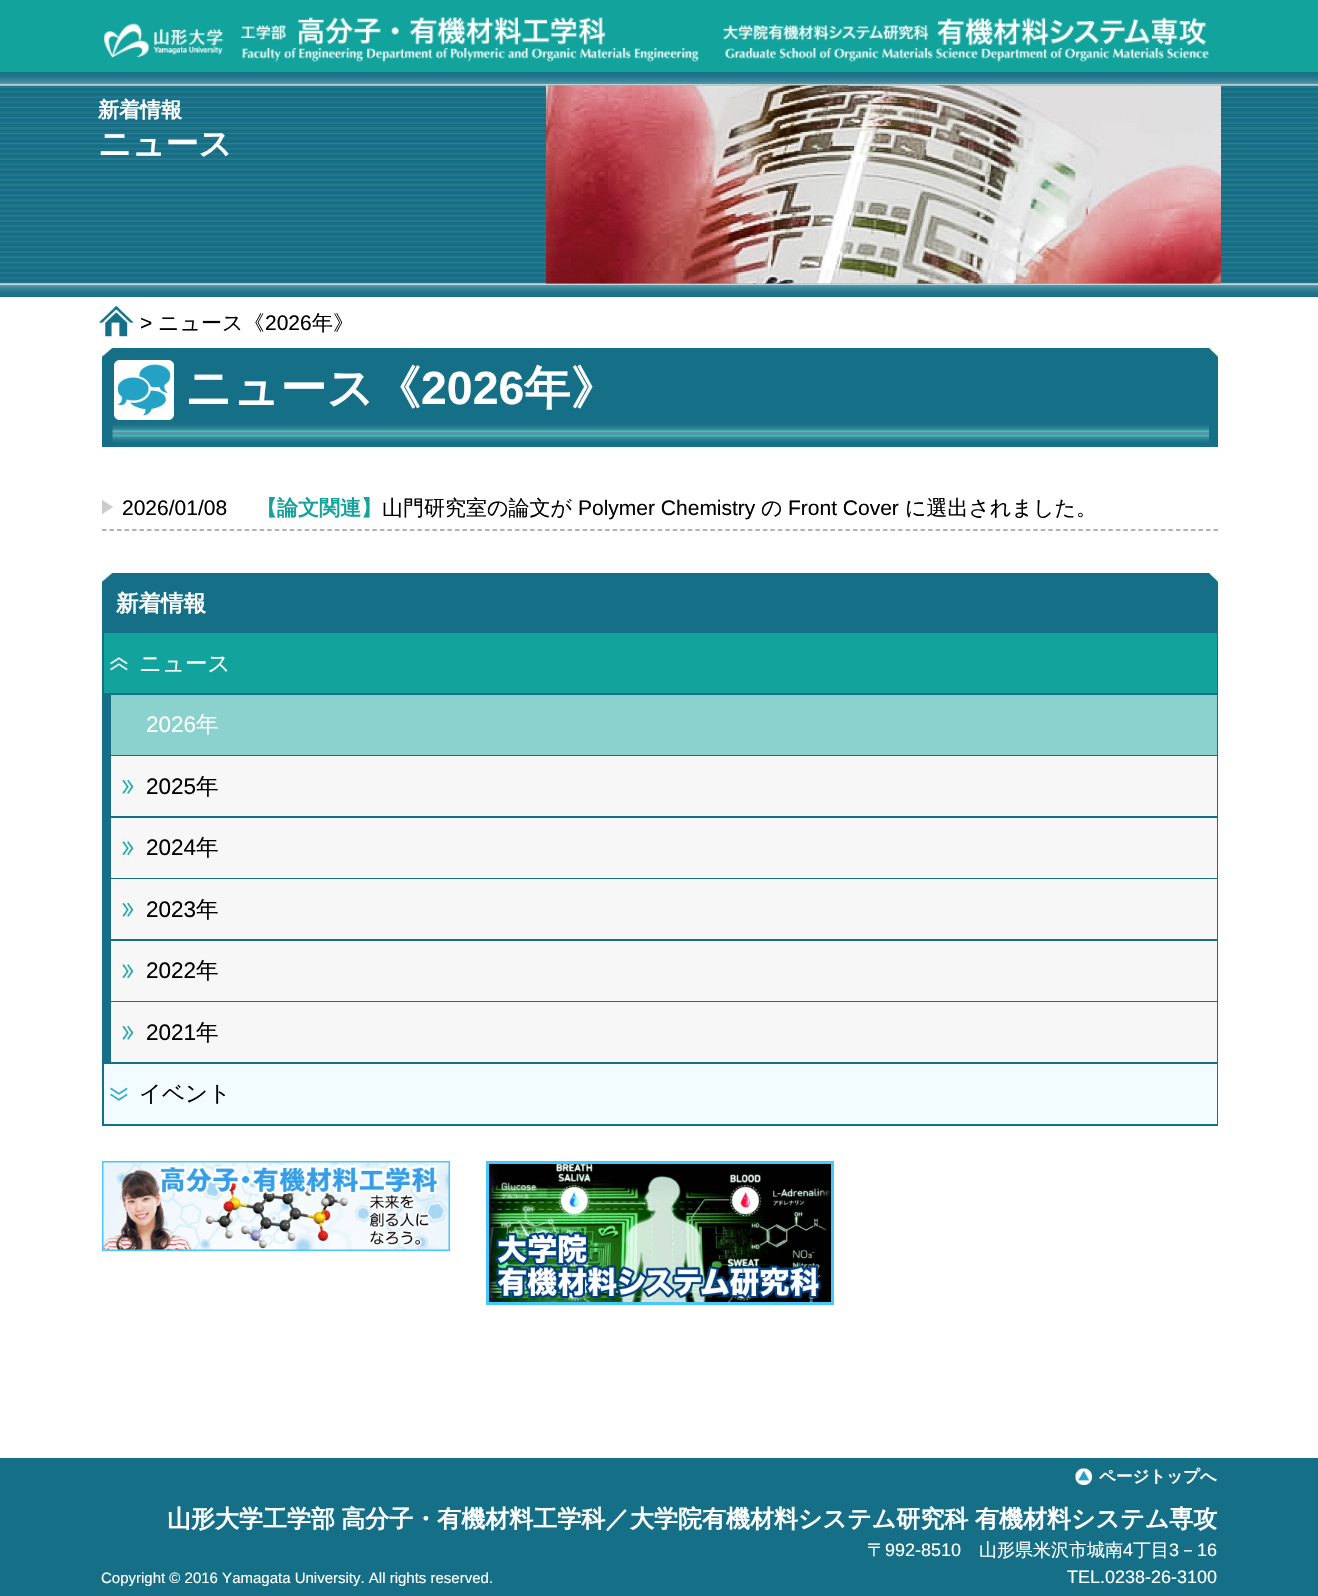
void draw(SkCanvas* canvas) {
  SkPaint paint;
  paint.setAntiAlias(true);
  auto face = [&](const char* family, int weight, float size, bool italic = false) {
    SkFontStyle style(weight, SkFontStyle::kNormal_Width,
      italic ? SkFontStyle::kItalic_Slant : SkFontStyle::kUpright_Slant);
    SkFont result(fontMgr->matchFamilyStyle(family, style), size);
    result.setSubpixel(true);
    return result;
  };
  auto writeSpaced = [&](const char* s, float x, float y, const SkFont& font, const SkPaint& ink, float letter, float word) {
    std::vector<SkGlyphID> glyphs(font.countText(s, strlen(s), SkTextEncoding::kUTF8));
    std::vector<float> xs(glyphs.size());
    font.textToGlyphs(s, strlen(s), SkTextEncoding::kUTF8, glyphs);
    font.getXPos(glyphs, xs, x);
    float extra = 0;
    for (size_t i = 0; i < glyphs.size(); i++) {
      xs[i] += extra;
      extra += letter + word * (glyphs[i] == font.unicharToGlyph(' '));
    }
    canvas->drawTextBlob(SkTextBlob::MakeFromPosHGlyphs(glyphs, xs, y, font), 0, 0, ink);
  };
  auto paste = [&](const char* path, float x, float y, float w, float h) {
    auto image = SkImages::DeferredFromEncodedData(SkData::MakeFromFileName(path));
    canvas->drawImageRect(image, SkRect::MakeXYWH(x, y, w, h), SkSamplingOptions());
  };
  auto shape = [&](const char* data, bool evenOdd = false) {
    SkPath result = *SkParsePath::FromSVGString(data);
    if (evenOdd) result.setFillType(SkPathFillType::kEvenOdd);
    return result;
  };
  canvas->clear(0xffffffff);
  paint.setColor(0xff12a39d);
  canvas->drawRect(SkRect::MakeXYWH(0, 0, 1318, 72), paint);
  paste("img/1.png", 104, 23, 120, 35);
  paste("img/2.png", 241, 17, 458, 45);
  paste("img/3.png", 723, 17, 486, 45);
  paste("img/4.png", 0, 72, 1318, 225);
  paste("img/5.png", 546, 85, 675, 199);
  paste("img/6.png", 99, 305, 35, 32);
  paint.setColor(0xff156f87);
  canvas->drawRect(SkRect::MakeXYWH(102, 348, 1116, 99), paint);
  paste("img/7.png", 102, 348, 1116, 95);
  paint.setStroke(true);
  paint.setStrokeWidth(1.5f);
  paint.setColor(0xff999999);
  paint.setPathEffect(SkDashPathEffect::Make({{4.5f, 3.01f}}, 0));
  canvas->drawPath(shape("M102 530H1218"), paint);
  paint.setPathEffect(nullptr);
  paste("img/8.png", 102, 499, 11, 16);
  paint.setStroke(false);
  paint.setColor(0xff156f87);
  canvas->drawRect(SkRect::MakeXYWH(102, 573, 1116, 60), paint);
  paste("img/9.png", 102, 573, 1116, 9);
  {
    const struct { float x, y, w, h; SkColor color; } items[] = {
      {1217, 633, 1, 492, 0xff156f87},
      {102, 1062, 1116, 2, 0xff156f87},
      {102, 633, 2, 431, 0xff156f87},
      {104, 633, 1113, 60, 0xff12a39d},
    };
    for (auto [x, y, w, h, color] : items) {
      paint.setColor(color);
      canvas->drawRect(SkRect::MakeXYWH(x, y, w, h), paint);
    }
  }
  paste("img/10.png", 110, 657, 18, 14);
  {
    const struct { float x, y, w, h; SkColor color; } items[] = {
      {104, 693, 1113, 2, 0xff156f87},
      {104, 693, 7, 62, 0xff156f87},
      {111, 695, 1106, 60, 0xff8bd2cf},
      {104, 755, 1113, 1, 0xff156f87},
      {104, 755, 7, 61, 0xff156f87},
      {111, 756, 1106, 60, 0xfff7f7f7},
    };
    for (auto [x, y, w, h, color] : items) {
      paint.setColor(color);
      canvas->drawRect(SkRect::MakeXYWH(x, y, w, h), paint);
    }
  }
  paste("img/11.png", 122, 780, 12, 14);
  {
    const struct { float x, y, w, h; SkColor color; } items[] = {
      {104, 816, 1113, 2, 0xff156f87},
      {104, 816, 7, 62, 0xff156f87},
      {111, 818, 1106, 60, 0xfff7f7f7},
    };
    for (auto [x, y, w, h, color] : items) {
      paint.setColor(color);
      canvas->drawRect(SkRect::MakeXYWH(x, y, w, h), paint);
    }
  }
  paste("img/12.png", 122, 841, 12, 14);
  {
    const struct { float x, y, w, h; SkColor color; } items[] = {
      {104, 878, 1113, 1, 0xff156f87},
      {104, 878, 7, 61, 0xff156f87},
      {111, 879, 1106, 60, 0xfff7f7f7},
    };
    for (auto [x, y, w, h, color] : items) {
      paint.setColor(color);
      canvas->drawRect(SkRect::MakeXYWH(x, y, w, h), paint);
    }
  }
  paste("img/11.png", 122, 903, 12, 14);
  {
    const struct { float x, y, w, h; SkColor color; } items[] = {
      {104, 939, 1113, 2, 0xff156f87},
      {104, 939, 7, 62, 0xff156f87},
      {111, 941, 1106, 60, 0xfff7f7f7},
    };
    for (auto [x, y, w, h, color] : items) {
      paint.setColor(color);
      canvas->drawRect(SkRect::MakeXYWH(x, y, w, h), paint);
    }
  }
  paste("img/12.png", 122, 964, 12, 14);
  {
    const struct { float x, y, w, h; SkColor color; } items[] = {
      {104, 1001, 1113, 1, 0xff156f87},
      {104, 1001, 7, 61, 0xff156f87},
      {111, 1002, 1106, 60, 0xfff7f7f7},
    };
    for (auto [x, y, w, h, color] : items) {
      paint.setColor(color);
      canvas->drawRect(SkRect::MakeXYWH(x, y, w, h), paint);
    }
  }
  paste("img/11.png", 122, 1026, 12, 14);
  {
    const struct { float x, y, w, h; SkColor color; } items[] = {
      {102, 1124, 1116, 2, 0xff156f87},
      {102, 1064, 2, 61, 0xff156f87},
      {104, 1064, 1113, 60, 0xfff2fcff},
    };
    for (auto [x, y, w, h, color] : items) {
      paint.setColor(color);
      canvas->drawRect(SkRect::MakeXYWH(x, y, w, h), paint);
    }
  }
  paste("img/13.png", 110, 1087, 18, 14);
  paste("img/14.png", 102, 1161, 348, 90);
  paste("img/15.png", 486, 1161, 348, 144);
  paint.setColor(0xff156f87);
  canvas->drawRect(SkRect::MakeXYWH(0, 1458, 1318, 138), paint);
  paste("img/16.png", 1075, 1468, 17, 17);
  auto f0 = face("WenQuanYi Zen Hei", 700, 21);
  paint.setColor(0xffffffff);
  canvas->drawString("新着情報", 98, 117, f0, paint);
  auto f1 = face("WenQuanYi Zen Hei", 700, 33);
  canvas->drawString("ニュース", 98, 155, f1, paint);
  auto f2 = face("Liberation Sans", 400, 21);
  paint.setColor(0xff000000);
  canvas->drawString(">", 140, 330, f2, paint);
  auto f3 = face("WenQuanYi Zen Hei", 500, 21);
  canvas->drawString("ニュース《", 158, 330, f3, paint);
  canvas->drawString("2026", 265, 330, f2, paint);
  canvas->drawString("年》", 312, 330, f3, paint);
  auto f4 = face("WenQuanYi Zen Hei", 700, 46.5f);
  paint.setColor(0xffffffff);
  canvas->drawString("ニュース《", 185, 404, f4, paint);
  auto f5 = face("Liberation Sans", 700, 46.5f);
  canvas->drawString("2026", 421, 404, f5, paint);
  canvas->drawString("年》", 524, 404, f4, paint);
  paint.setColor(0xff000000);
  canvas->drawString("2026/01/08", 122, 515, f2, paint);
  paint.setColor(0xff12a39d);
  canvas->drawString("【論文関連】", 256, 515, f0, paint);
  paint.setColor(0xff000000);
  canvas->drawString("山門研究室の論文が", 382, 515, f3, paint);
  canvas->drawString("Polymer Chemistry", 578, 515, f2, paint);
  canvas->drawString("の", 761, 515, f3, paint);
  canvas->drawString("Front Cover", 788, 515, f2, paint);
  canvas->drawString("に選出されました。", 905, 515, f3, paint);
  auto f6 = face("WenQuanYi Zen Hei", 700, 22.5f);
  paint.setColor(0xffffffff);
  canvas->drawString("新着情報", 116, 611, f6, paint);
  auto f7 = face("WenQuanYi Zen Hei", 500, 22.5f);
  canvas->drawString("ニュース", 139, 671, f7, paint);
  auto f8 = face("Liberation Sans", 400, 22.5f);
  canvas->drawString("2026", 146, 732, f8, paint);
  canvas->drawString("年", 196, 732, f7, paint);
  paint.setColor(0xff000000);
  canvas->drawString("2025", 146, 794, f8, paint);
  canvas->drawString("年", 196, 794, f7, paint);
  canvas->drawString("2024", 146, 855, f8, paint);
  canvas->drawString("年", 196, 855, f7, paint);
  canvas->drawString("2023", 146, 917, f8, paint);
  canvas->drawString("年", 196, 917, f7, paint);
  canvas->drawString("2022", 146, 978, f8, paint);
  canvas->drawString("年", 196, 978, f7, paint);
  canvas->drawString("2021", 146, 1040, f8, paint);
  canvas->drawString("年", 196, 1040, f7, paint);
  canvas->drawString("イベント", 139, 1101, f7, paint);
  auto f9 = face("WenQuanYi Zen Hei", 700, 16.5f);
  paint.setColor(0xffffffff);
  canvas->drawString("ページトップへ", 1099, 1482, f9, paint);
  auto f10 = face("WenQuanYi Zen Hei", 700, 24);
  writeSpaced("山形大学工学部 高分子・有機材料工学科／", 167, 1527, f10, paint, 0, -1);
  canvas->drawString("大学院有機材料システム研究科", 630, 1527, f10, paint);
  canvas->drawString("有機材料システム専攻", 975, 1527, f10, paint);
  auto f11 = face("Liberation Sans", 400, 15);
  canvas->drawString("Copyright © 2016 Yamagata University. All rights reserved.", 101, 1583, f11, paint);
  auto f12 = face("WenQuanYi Zen Hei", 500, 18);
  canvas->drawString("〒", 867, 1556, f12, paint);
  auto f13 = face("Liberation Sans", 400, 18);
  canvas->drawString("992-8510", 885, 1556, f13, paint);
  canvas->drawString("山形県米沢市城南", 979, 1556, f12, paint);
  canvas->drawString("4", 1123, 1556, f13, paint);
  canvas->drawString("丁目", 1133, 1556, f12, paint);
  canvas->drawString("3", 1169, 1556, f13, paint);
  canvas->drawString("－", 1179, 1556, f12, paint);
  canvas->drawString("16", 1197, 1556, f13, paint);
  canvas->drawString("TEL.0238-26-3100", 1067, 1583, f13, paint);
}
